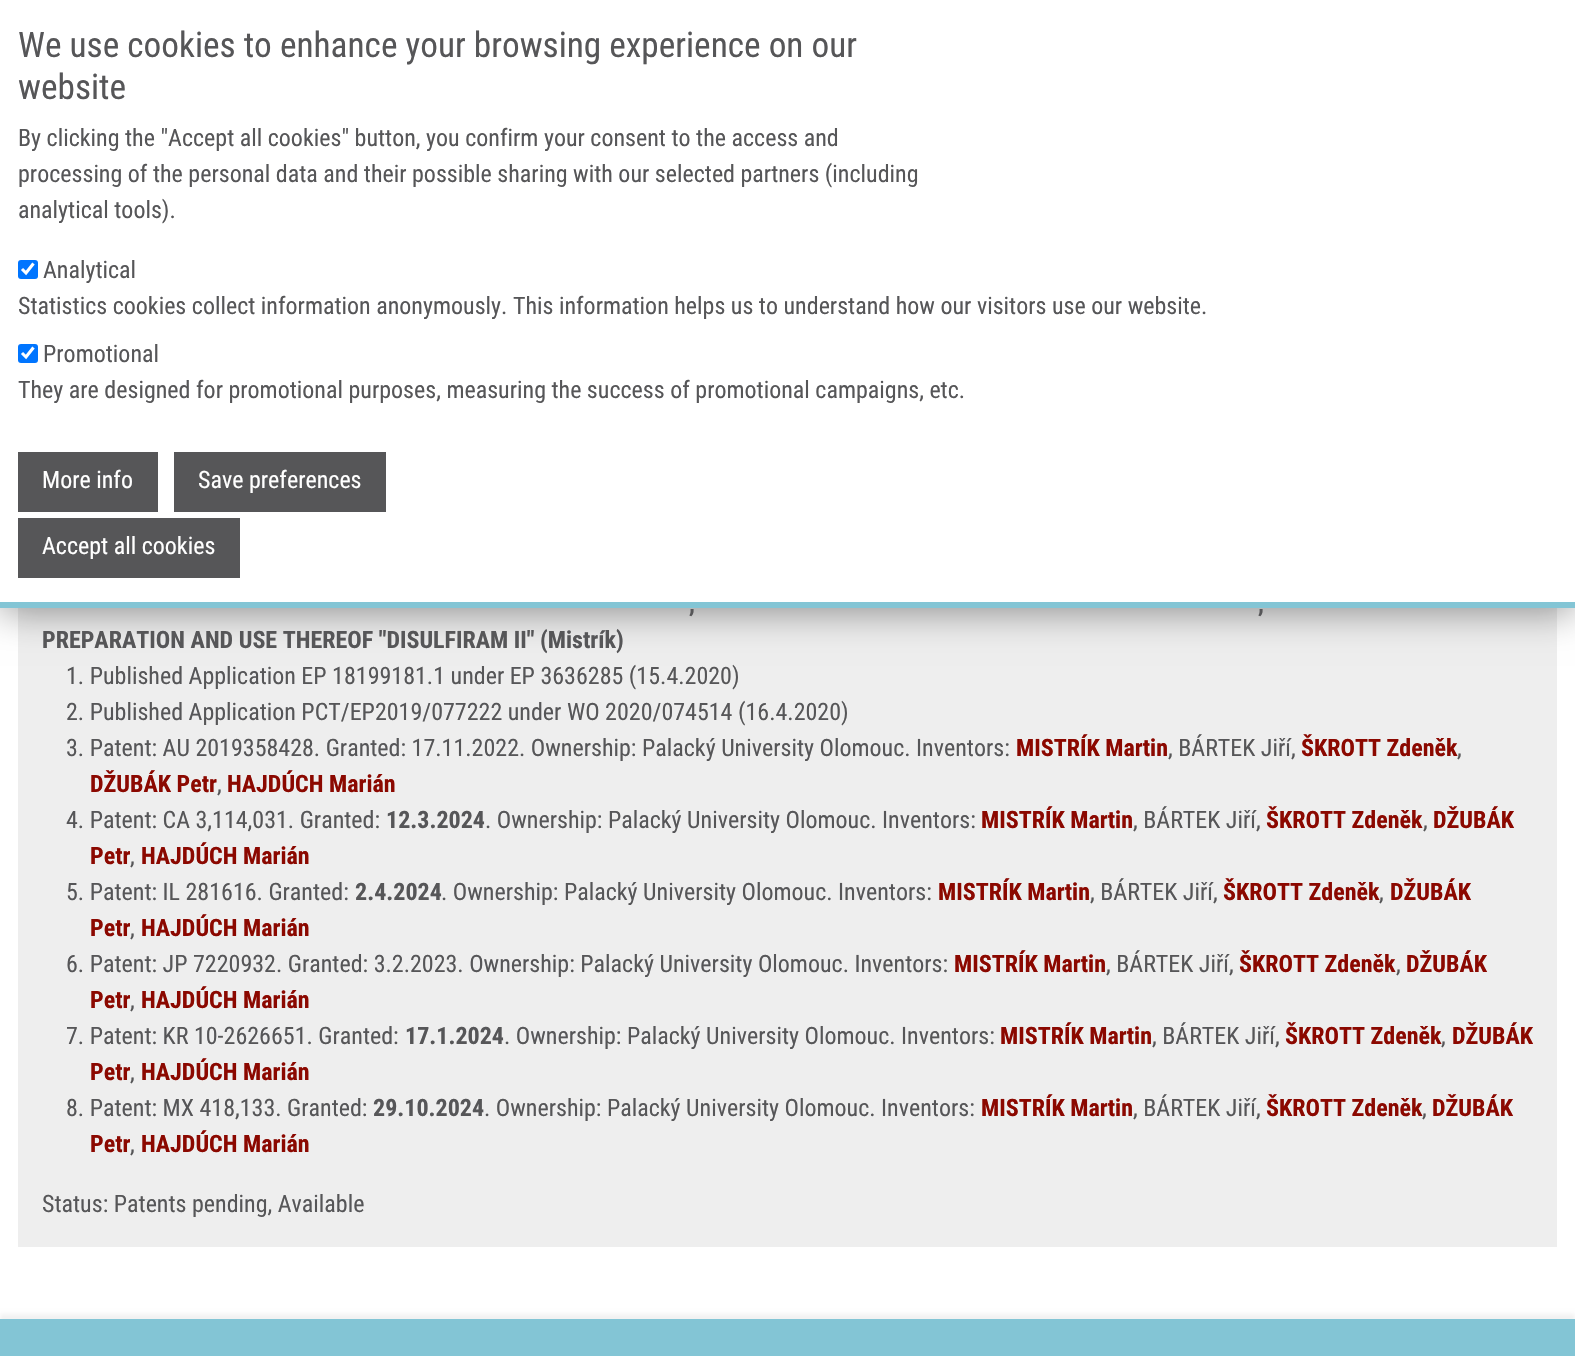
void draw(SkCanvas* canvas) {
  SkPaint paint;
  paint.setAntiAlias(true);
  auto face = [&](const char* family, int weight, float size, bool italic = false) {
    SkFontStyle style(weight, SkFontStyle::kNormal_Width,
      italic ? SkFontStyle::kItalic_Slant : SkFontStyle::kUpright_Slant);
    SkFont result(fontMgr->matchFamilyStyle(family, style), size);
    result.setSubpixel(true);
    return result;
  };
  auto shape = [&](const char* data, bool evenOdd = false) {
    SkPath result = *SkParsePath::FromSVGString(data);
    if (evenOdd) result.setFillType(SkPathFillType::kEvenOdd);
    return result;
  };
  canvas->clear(0xffffffff);
  paint.setColor(0xffeeeeee);
  canvas->drawRect(SkRect::MakeXYWH(18, 608, 1539, 639), paint);
  paint.setColor(0x66000000);
  paint.setMaskFilter(SkMaskFilter::MakeBlur(kNormal_SkBlurStyle, 18));
  canvas->drawRect(SkRect::MakeXYWH(0, 5, 1575, 607), paint);
  paint.setMaskFilter(nullptr);
  paint.setColor(0xffffffff);
  canvas->drawRect(SkRect::MakeXYWH(0, 0, 1575, 602), paint);
  paint.setColor(0xff83c5d5);
  canvas->drawRect(SkRect::MakeXYWH(0, 602, 1575, 6), paint);
  paint.setColor(0xff0075ff);
  canvas->drawRoundRect(SkRect::MakeXYWH(18, 260, 20, 19), 3, 3, paint);
  paint.setStroke(true);
  paint.setStrokeWidth(3.1f);
  paint.setColor(0xffffffff);
  canvas->drawPath(shape("M22 269L26 273L33.5 263.5"), paint);
  paint.setStroke(false);
  paint.setColor(0xff0075ff);
  canvas->drawRoundRect(SkRect::MakeXYWH(18, 344, 20, 19), 3, 3, paint);
  paint.setStroke(true);
  paint.setColor(0xffffffff);
  canvas->drawPath(shape("M22 353L26 357L33.5 347.5"), paint);
  paint.setStroke(false);
  {
    const struct { float x, y, w, h; SkColor color; } items[] = {
      {18, 452, 140, 60, 0xff565658},
      {174, 452, 212, 60, 0xff565658},
      {18, 518, 222, 60, 0xff565658},
    };
    for (auto [x, y, w, h, color] : items) {
      paint.setColor(color);
      canvas->drawRect(SkRect::MakeXYWH(x, y, w, h), paint);
    }
  }
  paint.setColor(0x0d000000);
  paint.setMaskFilter(SkMaskFilter::MakeBlur(kNormal_SkBlurStyle, 2));
  canvas->drawRect(SkRect::MakeXYWH(0, 1314, 1575, 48), paint);
  paint.setMaskFilter(nullptr);
  paint.setColor(0xff83c5d5);
  canvas->drawRect(SkRect::MakeXYWH(0, 1319, 1575, 37), paint);
  auto f0 = face("Roboto Condensed", 400, 35.3f);
  paint.setColor(0xff565658);
  canvas->drawString("We use cookies to enhance your browsing experience on our", 18, 57, f0, paint);
  canvas->drawString("website", 18, 99, f0, paint);
  auto f1 = face("Roboto Condensed", 400, 24);
  {
    const struct { const char* s; float x, y; } items[] = {
      {"By clicking the \"Accept all cookies\" button, you confirm your consent to the access and", 18, 146},
      {"processing of the personal data and their possible sharing with our selected partners (including", 18, 182},
      {"analytical tools).", 18, 218},
      {"Analytical", 43, 278},
      {"Statistics cookies collect information anonymously. This information helps us to understand how our visitors use our website.", 18, 314},
      {"Promotional", 43, 362},
      {"They are designed for promotional purposes, measuring the success of promotional campaigns, etc.", 18, 398},
    };
    for (auto [s, x, y] : items) {
      canvas->drawString(s, x, y, f1, paint);
    }
  }
  paint.setColor(0xffffffff);
  {
    const struct { const char* s; float x, y; } items[] = {
      {"More info", 42, 488},
      {"Save preferences", 198, 488},
      {"Accept all cookies", 42, 554},
    };
    for (auto [s, x, y] : items) {
      canvas->drawString(s, x, y, f1, paint);
    }
  }
  auto f2 = face("Roboto Condensed", 700, 24);
  paint.setColor(0xff565658);
  {
    const struct { const char* s; float x, y; } items[] = {
      {",", 689, 612},
      {",", 1258, 612},
      {"PREPARATION AND USE THEREOF \"DISULFIRAM II\" (Mistrík)", 42, 648},
    };
    for (auto [s, x, y] : items) {
      canvas->drawString(s, x, y, f2, paint);
    }
  }
  {
    const struct { const char* s; float x, y; } items[] = {
      {"1. Published Application EP 18199181.1 under EP 3636285 (15.4.2020)", 66, 684},
      {"2. Published Application PCT/EP2019/077222 under WO 2020/074514 (16.4.2020)", 66, 720},
      {"3. Patent: AU 2019358428. Granted: 17.11.2022. Ownership: Palacký University Olomouc. Inventors:", 66, 756},
    };
    for (auto [s, x, y] : items) {
      canvas->drawString(s, x, y, f1, paint);
    }
  }
  paint.setColor(0xff8b0800);
  canvas->drawString("MISTRÍK Martin", 1016, 756, f2, paint);
  paint.setColor(0xff565658);
  canvas->drawString(", BÁRTEK Jiří,", 1168, 756, f1, paint);
  paint.setColor(0xff8b0800);
  canvas->drawString("ŠKROTT Zdeněk", 1301, 756, f2, paint);
  paint.setColor(0xff565658);
  canvas->drawString(",", 1457, 756, f1, paint);
  paint.setColor(0xff8b0800);
  canvas->drawString("DŽUBÁK Petr", 90, 792, f2, paint);
  paint.setColor(0xff565658);
  canvas->drawString(",", 217, 792, f1, paint);
  paint.setColor(0xff8b0800);
  canvas->drawString("HAJDÚCH Marián", 227, 792, f2, paint);
  paint.setColor(0xff565658);
  canvas->drawString("4. Patent: CA 3,114,031. Granted:", 66, 828, f1, paint);
  canvas->drawString("12.3.2024", 386, 828, f2, paint);
  canvas->drawString(". Ownership: Palacký University Olomouc. Inventors:", 485, 828, f1, paint);
  paint.setColor(0xff8b0800);
  canvas->drawString("MISTRÍK Martin", 981, 828, f2, paint);
  paint.setColor(0xff565658);
  canvas->drawString(", BÁRTEK Jiří,", 1133, 828, f1, paint);
  paint.setColor(0xff8b0800);
  canvas->drawString("ŠKROTT Zdeněk", 1266, 828, f2, paint);
  paint.setColor(0xff565658);
  canvas->drawString(",", 1423, 828, f1, paint);
  paint.setColor(0xff8b0800);
  canvas->drawString("DŽUBÁK", 1433, 828, f2, paint);
  canvas->drawString("Petr", 90, 864, f2, paint);
  paint.setColor(0xff565658);
  canvas->drawString(",", 130, 864, f1, paint);
  paint.setColor(0xff8b0800);
  canvas->drawString("HAJDÚCH Marián", 141, 864, f2, paint);
  paint.setColor(0xff565658);
  canvas->drawString("5. Patent: IL 281616. Granted:", 66, 900, f1, paint);
  canvas->drawString("2.4.2024", 355, 900, f2, paint);
  canvas->drawString(". Ownership: Palacký University Olomouc. Inventors:", 441, 900, f1, paint);
  paint.setColor(0xff8b0800);
  canvas->drawString("MISTRÍK Martin", 938, 900, f2, paint);
  paint.setColor(0xff565658);
  canvas->drawString(", BÁRTEK Jiří,", 1090, 900, f1, paint);
  paint.setColor(0xff8b0800);
  canvas->drawString("ŠKROTT Zdeněk", 1223, 900, f2, paint);
  paint.setColor(0xff565658);
  canvas->drawString(",", 1379, 900, f1, paint);
  paint.setColor(0xff8b0800);
  canvas->drawString("DŽUBÁK", 1390, 900, f2, paint);
  canvas->drawString("Petr", 90, 936, f2, paint);
  paint.setColor(0xff565658);
  canvas->drawString(",", 130, 936, f1, paint);
  paint.setColor(0xff8b0800);
  canvas->drawString("HAJDÚCH Marián", 141, 936, f2, paint);
  paint.setColor(0xff565658);
  canvas->drawString("6. Patent: JP 7220932. Granted: 3.2.2023. Ownership: Palacký University Olomouc. Inventors:", 66, 972, f1, paint);
  paint.setColor(0xff8b0800);
  canvas->drawString("MISTRÍK Martin", 954, 972, f2, paint);
  paint.setColor(0xff565658);
  canvas->drawString(", BÁRTEK Jiří,", 1106, 972, f1, paint);
  paint.setColor(0xff8b0800);
  canvas->drawString("ŠKROTT Zdeněk", 1239, 972, f2, paint);
  paint.setColor(0xff565658);
  canvas->drawString(",", 1396, 972, f1, paint);
  paint.setColor(0xff8b0800);
  canvas->drawString("DŽUBÁK", 1406, 972, f2, paint);
  canvas->drawString("Petr", 90, 1008, f2, paint);
  paint.setColor(0xff565658);
  canvas->drawString(",", 130, 1008, f1, paint);
  paint.setColor(0xff8b0800);
  canvas->drawString("HAJDÚCH Marián", 141, 1008, f2, paint);
  paint.setColor(0xff565658);
  canvas->drawString("7. Patent: KR 10-2626651. Granted:", 66, 1044, f1, paint);
  canvas->drawString("17.1.2024", 405, 1044, f2, paint);
  canvas->drawString(". Ownership: Palacký University Olomouc. Inventors:", 504, 1044, f1, paint);
  paint.setColor(0xff8b0800);
  canvas->drawString("MISTRÍK Martin", 1000, 1044, f2, paint);
  paint.setColor(0xff565658);
  canvas->drawString(", BÁRTEK Jiří,", 1152, 1044, f1, paint);
  paint.setColor(0xff8b0800);
  canvas->drawString("ŠKROTT Zdeněk", 1285, 1044, f2, paint);
  paint.setColor(0xff565658);
  canvas->drawString(",", 1441, 1044, f1, paint);
  paint.setColor(0xff8b0800);
  canvas->drawString("DŽUBÁK", 1452, 1044, f2, paint);
  canvas->drawString("Petr", 90, 1080, f2, paint);
  paint.setColor(0xff565658);
  canvas->drawString(",", 130, 1080, f1, paint);
  paint.setColor(0xff8b0800);
  canvas->drawString("HAJDÚCH Marián", 141, 1080, f2, paint);
  paint.setColor(0xff565658);
  canvas->drawString("8. Patent: MX 418,133. Granted:", 66, 1116, f1, paint);
  canvas->drawString("29.10.2024", 373, 1116, f2, paint);
  canvas->drawString(". Ownership: Palacký University Olomouc. Inventors:", 484, 1116, f1, paint);
  paint.setColor(0xff8b0800);
  canvas->drawString("MISTRÍK Martin", 981, 1116, f2, paint);
  paint.setColor(0xff565658);
  canvas->drawString(", BÁRTEK Jiří,", 1133, 1116, f1, paint);
  paint.setColor(0xff8b0800);
  canvas->drawString("ŠKROTT Zdeněk", 1266, 1116, f2, paint);
  paint.setColor(0xff565658);
  canvas->drawString(",", 1422, 1116, f1, paint);
  paint.setColor(0xff8b0800);
  canvas->drawString("DŽUBÁK", 1432, 1116, f2, paint);
  canvas->drawString("Petr", 90, 1152, f2, paint);
  paint.setColor(0xff565658);
  canvas->drawString(",", 130, 1152, f1, paint);
  paint.setColor(0xff8b0800);
  canvas->drawString("HAJDÚCH Marián", 141, 1152, f2, paint);
  paint.setColor(0xff565658);
  canvas->drawString("Status: Patents pending, Available", 42, 1212, f1, paint);
}
